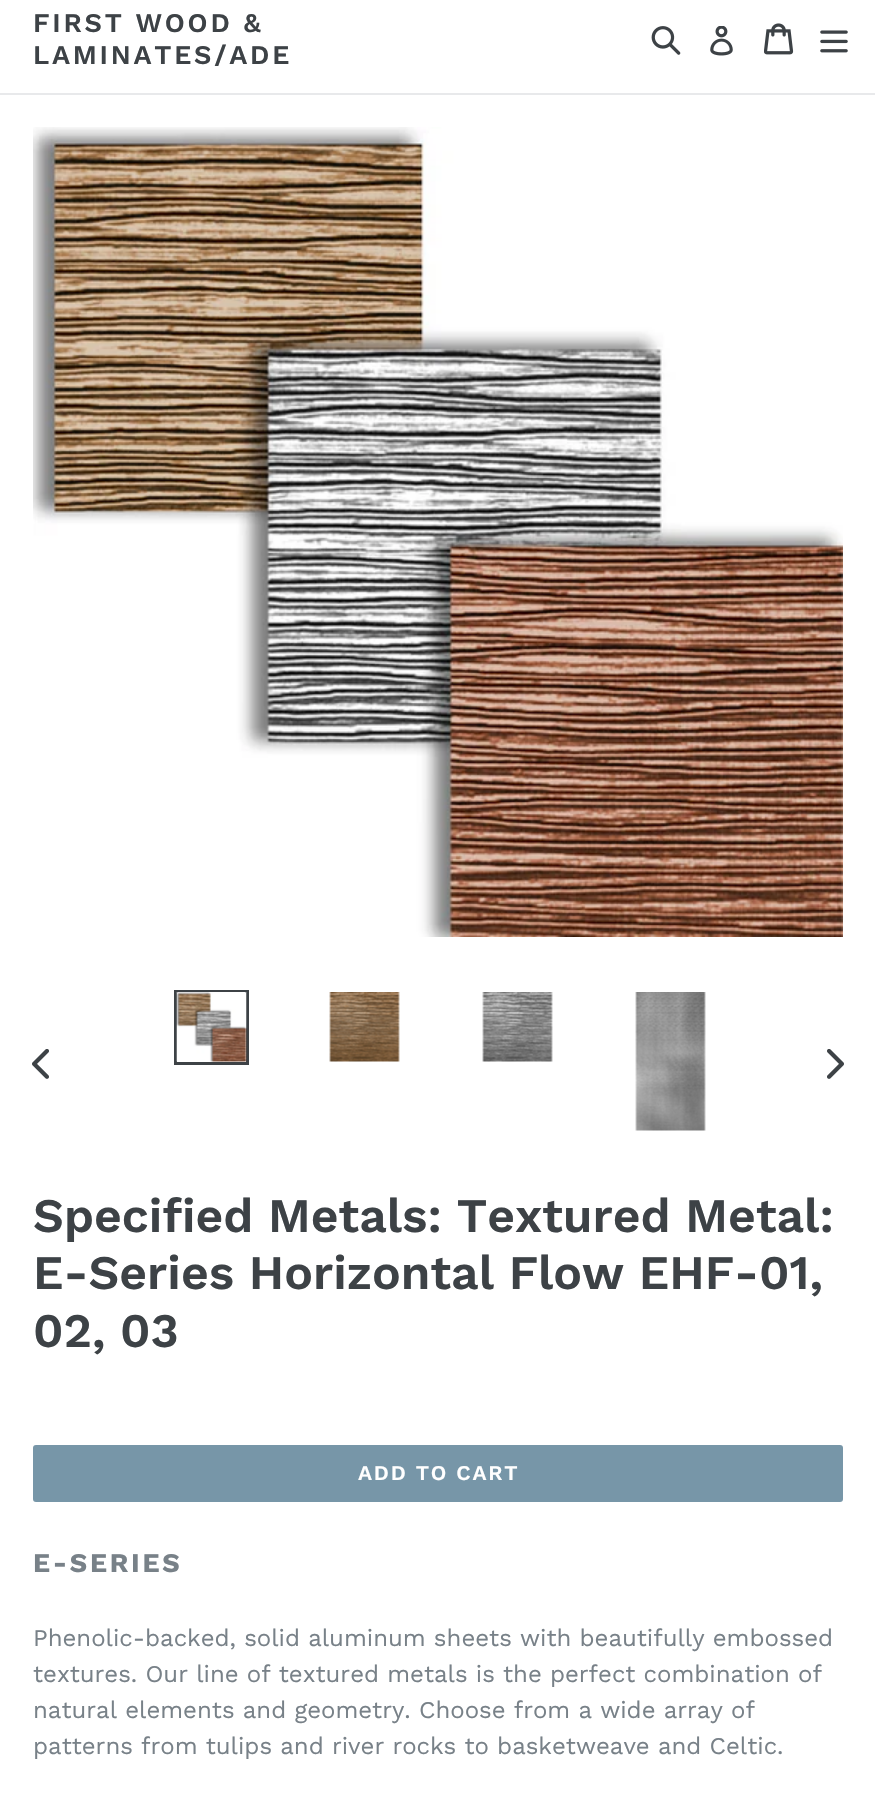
void draw(SkCanvas* canvas) {
  SkPaint paint;
  paint.setAntiAlias(true);
  auto face = [&](const char* family, int weight, float size, bool italic = false) {
    SkFontStyle style(weight, SkFontStyle::kNormal_Width,
      italic ? SkFontStyle::kItalic_Slant : SkFontStyle::kUpright_Slant);
    SkFont result(fontMgr->matchFamilyStyle(family, style), size);
    result.setSubpixel(true);
    return result;
  };
  auto writeSpaced = [&](const char* s, float x, float y, const SkFont& font, const SkPaint& ink, float letter, float word) {
    std::vector<SkGlyphID> glyphs(font.countText(s, strlen(s), SkTextEncoding::kUTF8));
    std::vector<float> xs(glyphs.size());
    font.textToGlyphs(s, strlen(s), SkTextEncoding::kUTF8, glyphs);
    font.getXPos(glyphs, xs, x);
    float extra = 0;
    for (size_t i = 0; i < glyphs.size(); i++) {
      xs[i] += extra;
      extra += letter + word * (glyphs[i] == font.unicharToGlyph(' '));
    }
    canvas->drawTextBlob(SkTextBlob::MakeFromPosHGlyphs(glyphs, xs, y, font), 0, 0, ink);
  };
  auto paste = [&](const char* path, float x, float y, float w, float h) {
    auto image = SkImages::DeferredFromEncodedData(SkData::MakeFromFileName(path));
    canvas->drawImageRect(image, SkRect::MakeXYWH(x, y, w, h), SkSamplingOptions());
  };
  canvas->clear(0xffffffff);
  paint.setColor(0xffe8e9eb);
  canvas->drawRect(SkRect::MakeXYWH(0, 93, 875, 2), paint);
  paste("img/1.png", 651, 26, 30, 29);
  paste("img/2.png", 710, 26, 23, 30);
  paste("img/3.png", 764, 23, 30, 32);
  paste("img/4.png", 820, 30, 28, 23);
  paste("img/5.png", 33, 127, 810, 810);
  paste("img/6.png", 32, 1049, 17, 30);
  paint.setStroke(true);
  paint.setStrokeWidth(3);
  paint.setColor(0xff3d4246);
  canvas->drawRect(SkRect::MakeXYWH(175.5f, 991.5f, 72, 72), paint);
  paste("img/7.png", 176, 992, 71, 70);
  paste("img/8.png", 329, 992, 71, 70);
  paste("img/9.png", 482, 992, 71, 70);
  paste("img/10.png", 635, 992, 71, 139);
  paste("img/11.png", 827, 1049, 17, 30);
  paint.setStroke(false);
  paint.setColor(0xff7796a8);
  canvas->drawRoundRect(SkRect::MakeXYWH(33, 1445, 810, 57), 3, 3, paint);
  auto f0 = face("Work Sans", 600, 27);
  paint.setColor(0xff3d4246);
  writeSpaced("FIRST WOOD &", 33, 32, f0, paint, 2.75f, 0);
  writeSpaced("LAMINATES/ADE", 33, 64, f0, paint, 2.75f, 0);
  auto f1 = face("Work Sans", 600, 48);
  {
    const struct { const char* s; float x, y; } items[] = {
      {"Specified Metals: Textured Metal:", 33, 1232},
      {"E-Series Horizontal Flow EHF-01,", 33, 1289},
      {"02, 03", 33, 1347},
    };
    for (auto [s, x, y] : items) {
      canvas->drawString(s, x, y, f1, paint);
    }
  }
  auto f2 = face("Work Sans", 600, 21);
  paint.setColor(0xffffffff);
  writeSpaced("ADD TO CART", 358, 1480, f2, paint, 1.75f, 0);
  auto f3 = face("Work Sans", 700, 27);
  paint.setColor(0xff788188);
  writeSpaced("E-SERIES", 33, 1572, f3, paint, 2.75f, 0);
  auto f4 = face("Work Sans", 400, 24);
  {
    const struct { const char* s; float x, y; } items[] = {
      {"Phenolic-backed, solid aluminum sheets with beautifully embossed", 33, 1646},
      {"textures. Our line of textured metals is the perfect combination of", 33, 1682},
      {"natural elements and geometry. Choose from a wide array of", 33, 1718},
      {"patterns from tulips and river rocks to basketweave and Celtic.", 33, 1754},
    };
    for (auto [s, x, y] : items) {
      canvas->drawString(s, x, y, f4, paint);
    }
  }
}
